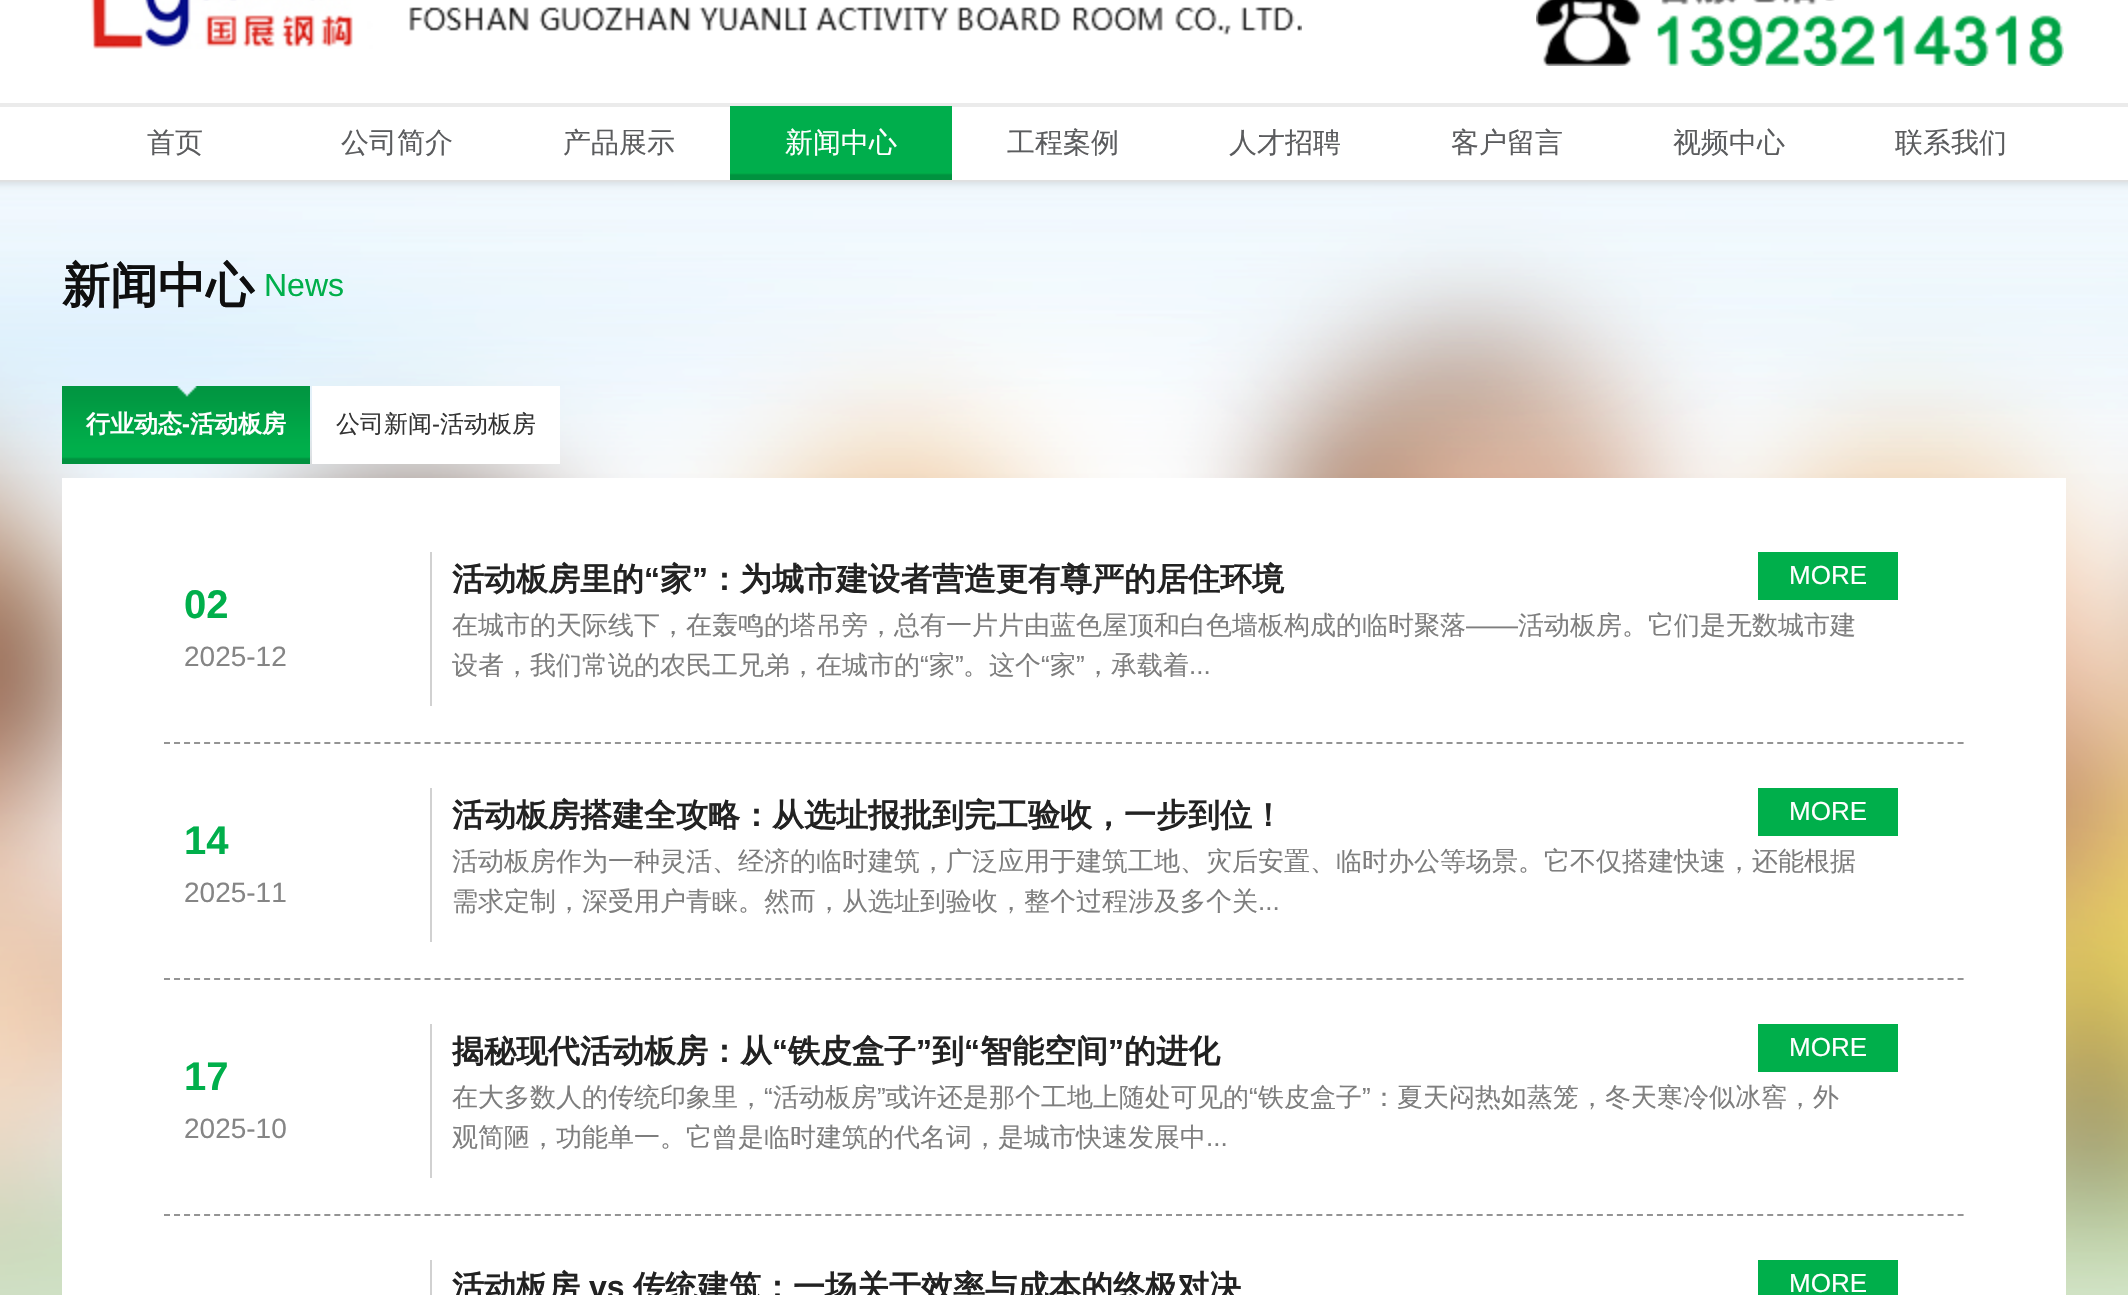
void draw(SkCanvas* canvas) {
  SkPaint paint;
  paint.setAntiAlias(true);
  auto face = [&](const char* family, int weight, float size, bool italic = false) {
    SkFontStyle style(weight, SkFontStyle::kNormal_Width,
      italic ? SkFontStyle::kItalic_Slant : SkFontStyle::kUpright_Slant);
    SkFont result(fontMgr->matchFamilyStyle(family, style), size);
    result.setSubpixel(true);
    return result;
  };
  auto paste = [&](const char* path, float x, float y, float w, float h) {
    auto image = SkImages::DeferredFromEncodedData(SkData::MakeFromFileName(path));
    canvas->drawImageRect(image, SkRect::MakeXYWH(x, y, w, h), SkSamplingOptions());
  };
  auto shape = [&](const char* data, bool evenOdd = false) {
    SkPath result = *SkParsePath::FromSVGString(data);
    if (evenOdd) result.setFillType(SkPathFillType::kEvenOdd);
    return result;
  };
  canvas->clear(0xffffffff);
  paint.setColor(0xffebebeb);
  canvas->drawRect(SkRect::MakeXYWH(0, 103, 2128, 4), paint);
  paste("img/1.png", 91, 0, 1211, 49);
  paste("img/2.png", 1536, 0, 528, 66);
  paste("img/3.png", 730, 106, 222, 74);
  paste("img/4.png", 0, 180, 2128, 1115);
  paste("img/5.png", 62, 386, 248, 78);
  paint.setColor(0xffffffff);
  canvas->drawRect(SkRect::MakeXYWH(312, 386, 248, 78), paint);
  canvas->drawRect(SkRect::MakeXYWH(62, 478, 2004, 817), paint);
  paint.setStroke(true);
  paint.setStrokeWidth(2);
  paint.setColor(0xff949494);
  paint.setPathEffect(SkDashPathEffect::Make({{6, 4.02f}}, 0));
  canvas->drawPath(shape("M164 743H1964"), paint);
  paint.setPathEffect(nullptr);
  paint.setStroke(false);
  paint.setColor(0xffd1d1d1);
  canvas->drawRect(SkRect::MakeXYWH(430, 552, 2, 154), paint);
  paint.setColor(0xff00af4b);
  canvas->drawRect(SkRect::MakeXYWH(1758, 552, 140, 48), paint);
  paint.setStroke(true);
  paint.setColor(0xff949494);
  paint.setPathEffect(SkDashPathEffect::Make({{6, 4.02f}}, 0));
  canvas->drawPath(shape("M164 979H1964"), paint);
  paint.setPathEffect(nullptr);
  paint.setStroke(false);
  paint.setColor(0xffd1d1d1);
  canvas->drawRect(SkRect::MakeXYWH(430, 788, 2, 154), paint);
  paint.setColor(0xff00af4b);
  canvas->drawRect(SkRect::MakeXYWH(1758, 788, 140, 48), paint);
  paint.setStroke(true);
  paint.setColor(0xff949494);
  paint.setPathEffect(SkDashPathEffect::Make({{6, 4.02f}}, 0));
  canvas->drawPath(shape("M164 1215H1964"), paint);
  paint.setPathEffect(nullptr);
  paint.setStroke(false);
  {
    const struct { float x, y, w, h; SkColor color; } items[] = {
      {430, 1024, 2, 154, 0xffd1d1d1},
      {1758, 1024, 140, 48, 0xff00af4b},
      {430, 1260, 2, 35, 0xffd1d1d1},
      {1758, 1260, 140, 35, 0xff00af4b},
    };
    for (auto [x, y, w, h, color] : items) {
      paint.setColor(color);
      canvas->drawRect(SkRect::MakeXYWH(x, y, w, h), paint);
    }
  }
  auto f0 = face("WenQuanYi Zen Hei", 500, 28);
  paint.setColor(0xff5b5c5e);
  {
    const struct { const char* s; float x, y; } items[] = {
      {"首页", 147, 152},
      {"公司简介", 341, 152},
      {"产品展示", 563, 152},
    };
    for (auto [s, x, y] : items) {
      canvas->drawString(s, x, y, f0, paint);
    }
  }
  paint.setColor(0xffffffff);
  canvas->drawString("新闻中心", 785, 152, f0, paint);
  paint.setColor(0xff5b5c5e);
  {
    const struct { const char* s; float x, y; } items[] = {
      {"工程案例", 1007, 152},
      {"人才招聘", 1229, 152},
      {"客户留言", 1451, 152},
      {"视频中心", 1673, 152},
      {"联系我们", 1895, 152},
    };
    for (auto [s, x, y] : items) {
      canvas->drawString(s, x, y, f0, paint);
    }
  }
  auto f1 = face("WenQuanYi Zen Hei", 700, 48);
  paint.setColor(0xff0f0f0f);
  canvas->drawString("新闻中心", 62, 302, f1, paint);
  auto f2 = face("Liberation Sans", 400, 32);
  paint.setColor(0xff00af4b);
  canvas->drawString("News", 264, 296, f2, paint);
  auto f3 = face("WenQuanYi Zen Hei", 700, 24);
  paint.setColor(0xffffffff);
  canvas->drawString("行业动态", 86, 432, f3, paint);
  auto f4 = face("Liberation Sans", 700, 24);
  canvas->drawString("-", 182, 432, f4, paint);
  canvas->drawString("活动板房", 190, 432, f3, paint);
  auto f5 = face("WenQuanYi Zen Hei", 500, 24);
  paint.setColor(0xff333333);
  canvas->drawString("公司新闻", 336, 432, f5, paint);
  auto f6 = face("Liberation Sans", 400, 24);
  canvas->drawString("-", 432, 432, f6, paint);
  canvas->drawString("活动板房", 440, 432, f5, paint);
  auto f7 = face("Liberation Sans", 700, 40);
  paint.setColor(0xff00af4b);
  canvas->drawString("02", 184, 618, f7, paint);
  auto f8 = face("Liberation Sans", 400, 28);
  paint.setColor(0xff858585);
  canvas->drawString("2025-12", 184, 666, f8, paint);
  auto f9 = face("WenQuanYi Zen Hei", 700, 32);
  paint.setColor(0xff222222);
  canvas->drawString("活动板房里的", 452, 590, f9, paint);
  auto f10 = face("Liberation Sans", 700, 32);
  canvas->drawString("“", 644, 590, f10, paint);
  canvas->drawString("家", 660, 590, f9, paint);
  canvas->drawString("”", 692, 590, f10, paint);
  canvas->drawString("：为城市建设者营造更有尊严的居住环境", 708, 590, f9, paint);
  auto f11 = face("Liberation Sans", 400, 26);
  paint.setColor(0xffffffff);
  canvas->drawString("MORE", 1789, 584, f11, paint);
  auto f12 = face("WenQuanYi Zen Hei", 500, 26);
  paint.setColor(0xff7e7e7e);
  canvas->drawString("在城市的天际线下，在轰鸣的塔吊旁，总有一片片由蓝色屋顶和白色墙板构成的临时聚落", 452, 634, f12, paint);
  canvas->drawString("——", 1466, 634, f11, paint);
  canvas->drawString("活动板房。它们是无数城市建", 1518, 634, f12, paint);
  canvas->drawString("设者，我们常说的农民工兄弟，在城市的", 452, 674, f12, paint);
  canvas->drawString("“", 920, 674, f11, paint);
  canvas->drawString("家", 929, 674, f12, paint);
  canvas->drawString("”", 955, 674, f11, paint);
  canvas->drawString("。这个", 963, 674, f12, paint);
  canvas->drawString("“", 1041, 674, f11, paint);
  canvas->drawString("家", 1050, 674, f12, paint);
  canvas->drawString("”", 1076, 674, f11, paint);
  canvas->drawString("，承载着", 1085, 674, f12, paint);
  canvas->drawString("...", 1189, 674, f11, paint);
  paint.setColor(0xff00af4b);
  canvas->drawString("14", 184, 854, f7, paint);
  paint.setColor(0xff858585);
  canvas->drawString("2025-11", 184, 902, f8, paint);
  paint.setColor(0xff222222);
  canvas->drawString("活动板房搭建全攻略：从选址报批到完工验收，一步到位！", 452, 826, f9, paint);
  paint.setColor(0xffffffff);
  canvas->drawString("MORE", 1789, 820, f11, paint);
  paint.setColor(0xff7e7e7e);
  canvas->drawString("活动板房作为一种灵活、经济的临时建筑，广泛应用于建筑工地、灾后安置、临时办公等场景。它不仅搭建快速，还能根据", 452, 870, f12, paint);
  canvas->drawString("需求定制，深受用户青睐。然而，从选址到验收，整个过程涉及多个关", 452, 910, f12, paint);
  canvas->drawString("...", 1258, 910, f11, paint);
  paint.setColor(0xff00af4b);
  canvas->drawString("17", 184, 1090, f7, paint);
  paint.setColor(0xff858585);
  canvas->drawString("2025-10", 184, 1138, f8, paint);
  paint.setColor(0xff222222);
  canvas->drawString("揭秘现代活动板房：从", 452, 1062, f9, paint);
  canvas->drawString("“", 772, 1062, f10, paint);
  canvas->drawString("铁皮盒子", 788, 1062, f9, paint);
  canvas->drawString("”", 916, 1062, f10, paint);
  canvas->drawString("到", 932, 1062, f9, paint);
  canvas->drawString("“", 964, 1062, f10, paint);
  canvas->drawString("智能空间", 980, 1062, f9, paint);
  canvas->drawString("”", 1108, 1062, f10, paint);
  canvas->drawString("的进化", 1124, 1062, f9, paint);
  paint.setColor(0xffffffff);
  canvas->drawString("MORE", 1789, 1056, f11, paint);
  paint.setColor(0xff7e7e7e);
  canvas->drawString("在大多数人的传统印象里，", 452, 1106, f12, paint);
  canvas->drawString("“", 764, 1106, f11, paint);
  canvas->drawString("活动板房", 773, 1106, f12, paint);
  canvas->drawString("”", 877, 1106, f11, paint);
  canvas->drawString("或许还是那个工地上随处可见的", 885, 1106, f12, paint);
  canvas->drawString("“", 1249, 1106, f11, paint);
  canvas->drawString("铁皮盒子", 1258, 1106, f12, paint);
  canvas->drawString("”", 1362, 1106, f11, paint);
  canvas->drawString("：夏天闷热如蒸笼，冬天寒冷似冰窖，外", 1371, 1106, f12, paint);
  canvas->drawString("观简陋，功能单一。它曾是临时建筑的代名词，是城市快速发展中", 452, 1146, f12, paint);
  canvas->drawString("...", 1206, 1146, f11, paint);
  paint.setColor(0xff222222);
  canvas->drawString("活动板房", 452, 1298, f9, paint);
  canvas->drawString("vs", 589, 1298, f10, paint);
  canvas->drawString("传统建筑：一场关于效率与成本的终极对决", 633, 1298, f9, paint);
  paint.setColor(0xffffffff);
  canvas->drawString("MORE", 1789, 1292, f11, paint);
}
